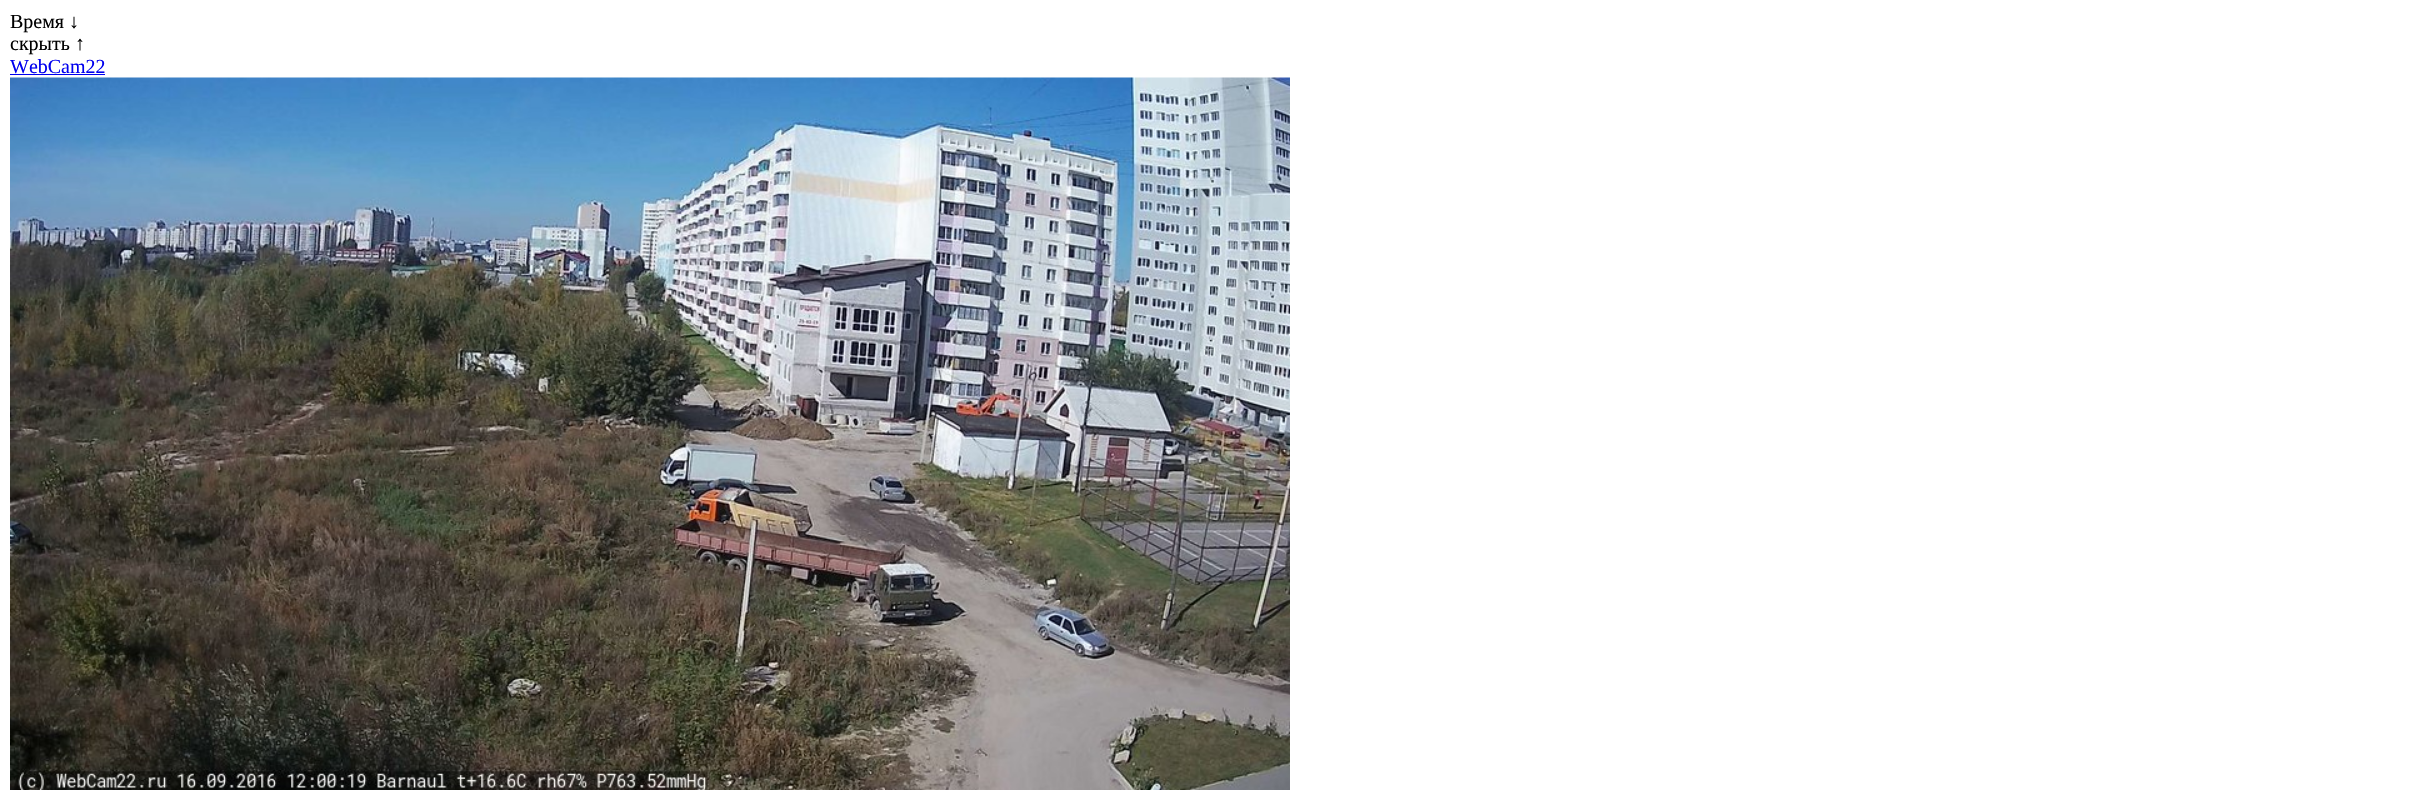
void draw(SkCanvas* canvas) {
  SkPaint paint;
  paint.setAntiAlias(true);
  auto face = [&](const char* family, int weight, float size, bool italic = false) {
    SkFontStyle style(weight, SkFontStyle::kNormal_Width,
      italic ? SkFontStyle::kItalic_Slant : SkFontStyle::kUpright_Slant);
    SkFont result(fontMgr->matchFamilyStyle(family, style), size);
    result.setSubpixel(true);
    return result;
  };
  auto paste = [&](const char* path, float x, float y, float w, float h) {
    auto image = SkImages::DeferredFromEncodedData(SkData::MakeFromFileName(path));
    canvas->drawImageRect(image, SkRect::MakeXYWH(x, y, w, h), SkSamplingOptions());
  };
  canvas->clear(0xffffffff);
  paint.setColor(0xff0000ee);
  canvas->drawRect(SkRect::MakeXYWH(10, 74, 95, 1), paint);
  paste("img/1.png", 10, 77, 1280, 713);
  auto f0 = face("Liberation Serif", 400, 20);
  paint.setColor(0xff000000);
  canvas->drawString("Время ↓", 10, 28, f0, paint);
  canvas->drawString("скрыть ↑", 10, 50, f0, paint);
  paint.setColor(0xff0000ee);
  canvas->drawString("WebCam22", 10, 73, f0, paint);
}
